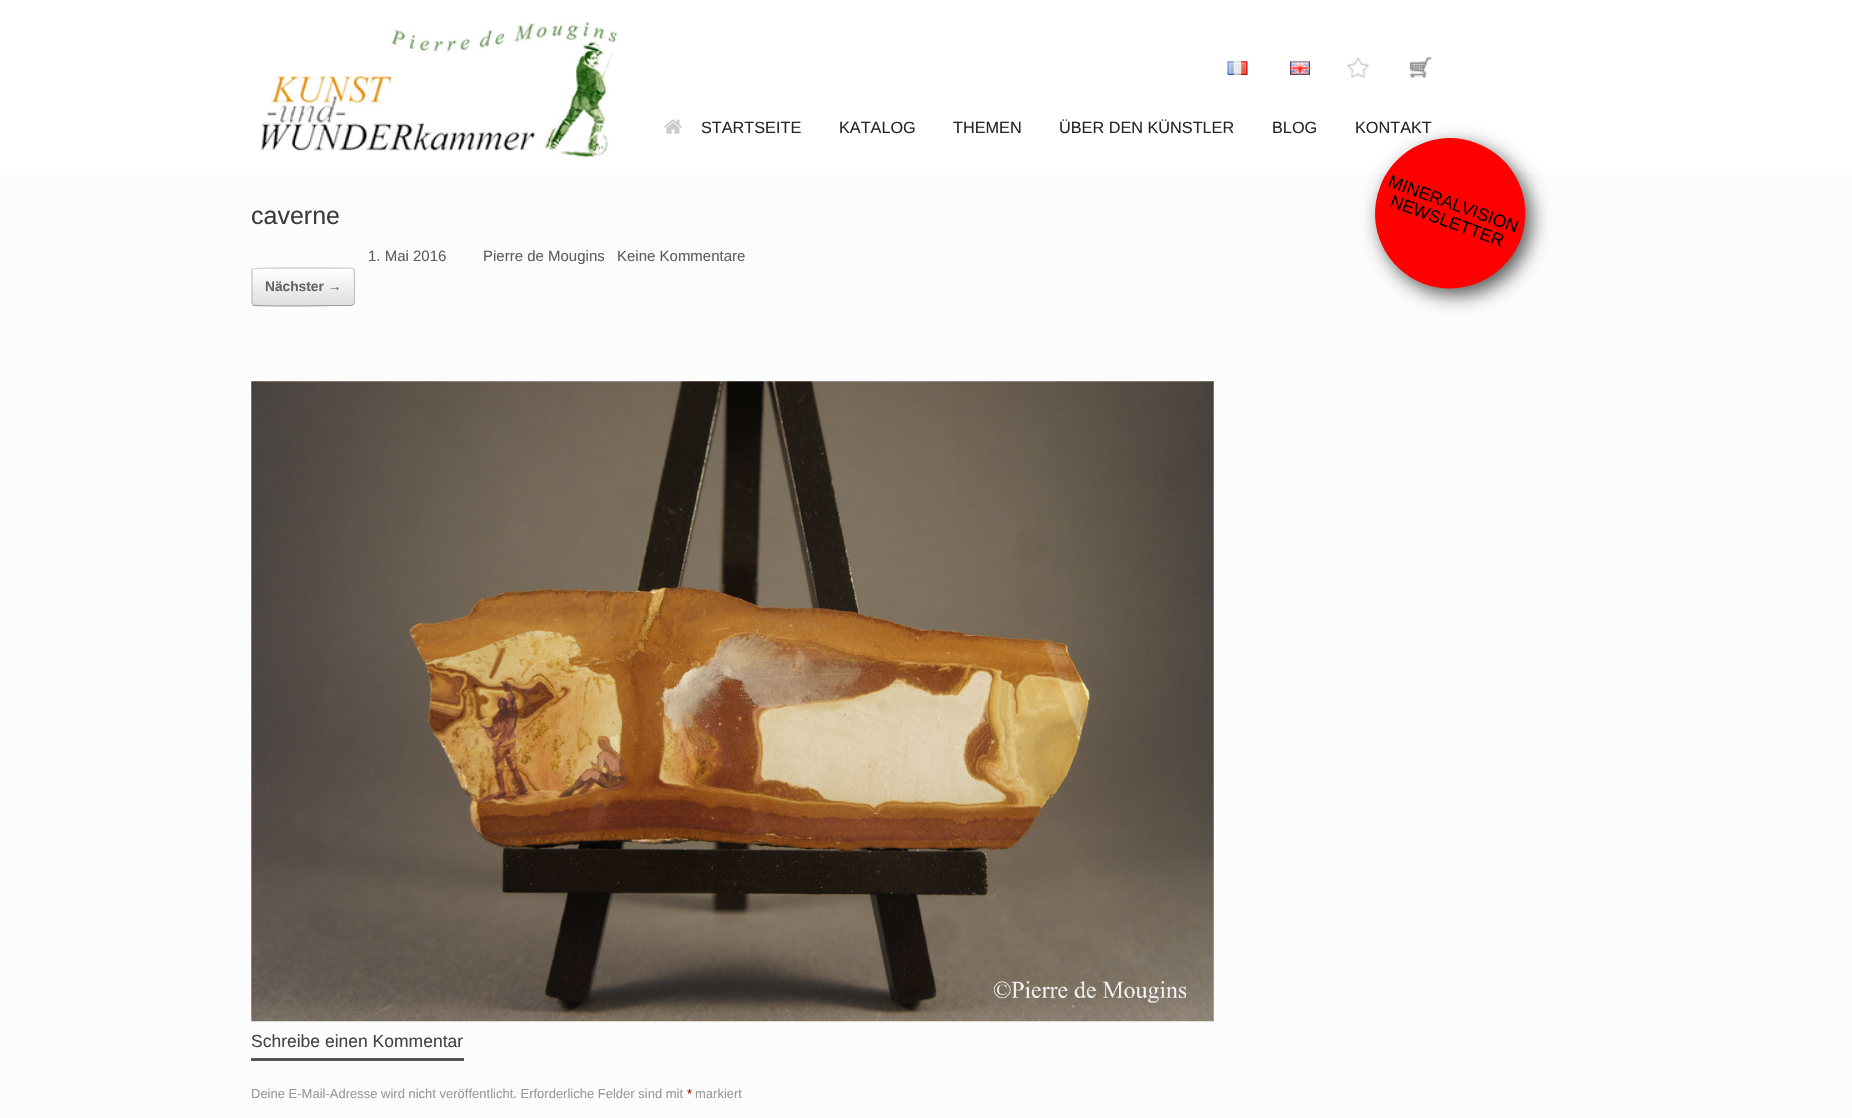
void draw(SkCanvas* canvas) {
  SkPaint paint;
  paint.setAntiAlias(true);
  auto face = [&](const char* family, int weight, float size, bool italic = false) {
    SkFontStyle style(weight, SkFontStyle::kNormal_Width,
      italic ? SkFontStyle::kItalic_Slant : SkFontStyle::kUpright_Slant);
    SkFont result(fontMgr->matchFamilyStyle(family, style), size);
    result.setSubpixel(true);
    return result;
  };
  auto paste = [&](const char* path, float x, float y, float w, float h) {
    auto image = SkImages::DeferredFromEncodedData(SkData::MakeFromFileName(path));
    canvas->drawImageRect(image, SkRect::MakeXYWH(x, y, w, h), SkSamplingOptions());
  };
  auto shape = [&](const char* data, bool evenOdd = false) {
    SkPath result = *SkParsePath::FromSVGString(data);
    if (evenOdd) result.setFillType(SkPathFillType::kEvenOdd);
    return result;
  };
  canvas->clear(0xfffcfcfc);
  paint.setColor(0xffffffff);
  canvas->drawRect(SkRect::MakeXYWH(0, 0, 1852, 174), paint);
  paste("img/1.png", 261, 22, 359, 138);
  paste("img/2.png", 1227, 61, 21, 14);
  paste("img/3.png", 1290, 61, 20, 14);
  paste("img/4.png", 1347, 57, 22, 21);
  paste("img/5.png", 1410, 57, 22, 21);
  paste("img/6.png", 664, 119, 18, 15);
  paint.setColor(0xff555555);
  paint.setMaskFilter(SkMaskFilter::MakeBlur(kNormal_SkBlurStyle, 9.5f));
  canvas->drawRoundRect(SkRect::MakeXYWH(1381, 145, 150, 150), 75, 75, paint);
  paint.setMaskFilter(nullptr);
  paint.setColor(0xffff0000);
  canvas->drawPath(shape("M1476 143C1515 157 1535 200 1521 239C1506 278 1463 298 1424 284C1385 269 1365 226 1380 187C1394 149 1437 128 1476 143Z"), paint);
  canvas->save();
  canvas->clipPath(shape("M255 268H351C353 268 355 270 355 272V302C355 304 353 306 351 306H255C253 306 251 304 251 302V272C251 270 253 268 255 268Z"), true);
  {
    const SkColor colors[] = {0xffdfdfdf, 0xffffffff};
    const float stops[] = {0, 1};
    const SkPoint ends[] = {{253, 269}, {253, 233}};
    paint.setShader(SkGradientShader::MakeLinear(ends, colors, stops, 2, SkTileMode::kClamp));
    paint.setAlpha(255);
  }
  canvas->drawRect(SkRect::MakeXYWH(251, 268, 104, 1), paint);
  {
    const SkColor colors[] = {0xffdfdfdf, 0xffffffff};
    const float stops[] = {0, 1};
    const SkPoint ends[] = {{253, 305}, {253, 269}};
    paint.setShader(SkGradientShader::MakeLinear(ends, colors, stops, 2, SkTileMode::kClamp));
    paint.setAlpha(255);
  }
  canvas->drawRect(SkRect::MakeXYWH(251, 269, 104, 36), paint);
  canvas->restore();
  paint.setStroke(true);
  paint.setStrokeWidth(1.2f);
  paint.setShader(nullptr);
  paint.setColor(0xffd2d2d2);
  canvas->drawPath(shape("M253 269C255 267 326.5 268 335 268H351L353.5 269"), paint);
  paint.setColor(0xffc3c3c3);
  canvas->drawPath(shape("M353.5 269C354 269.5 354.5 270.5 354.5 271V302.5C354.5 303.5 354 304 353.5 304.5"), paint);
  paint.setColor(0xff9f9f9f);
  canvas->drawPath(shape("M353.5 304.5L351 305.5H335C326.5 305.5 255 306.5 253 305V304.5"), paint);
  paint.setColor(0xffc3c3c3);
  canvas->drawPath(shape("M253 304.5C252 304 252 303.5 252 302.5V271C252 270.5 252 269.5 253 269"), paint);
  paste("img/7.png", 251, 381, 963, 641);
  paint.setStroke(false);
  paint.setColor(0xff555555);
  canvas->drawRect(SkRect::MakeXYWH(251, 1058, 213, 3), paint);
  auto f0 = face("Liberation Sans", 400, 16.25f);
  paint.setColor(0xff262626);
  {
    const struct { const char* s; float x, y; } items[] = {
      {"STARTSEITE", 701, 133},
      {"KATALOG", 839, 133},
      {"THEMEN", 953, 133},
      {"ÜBER DEN KÜNSTLER", 1059, 133},
      {"BLOG", 1272, 133},
      {"KONTAKT", 1355, 133},
    };
    for (auto [s, x, y] : items) {
      canvas->drawString(s, x, y, f0, paint);
    }
  }
  auto f1 = face("Liberation Sans", 400, 17.5f);
  paint.setColor(0xff000000);
  canvas->save();
  canvas->rotate(20, 1387, 186);
  canvas->drawString("MINERALVISION", 1387, 186, f1, paint);
  canvas->restore();
  canvas->save();
  canvas->rotate(20, 1389, 206);
  canvas->drawString("NEWSLETTER", 1389, 206, f1, paint);
  canvas->restore();
  auto f2 = face("Liberation Sans", 400, 25);
  paint.setColor(0xff3b3b3b);
  canvas->drawString("caverne", 251, 224, f2, paint);
  auto f3 = face("Liberation Sans", 400, 15);
  paint.setColor(0xff5e5e5e);
  {
    const struct { const char* s; float x, y; } items[] = {
      {"1. Mai 2016", 368, 261},
      {"Pierre de Mougins", 483, 261},
      {"Keine Kommentare", 617, 261},
    };
    for (auto [s, x, y] : items) {
      canvas->drawString(s, x, y, f3, paint);
    }
  }
  auto f4 = face("Liberation Sans", 700, 13.75f);
  paint.setColor(0xff646464);
  canvas->drawString("Nächster →", 265, 291, f4, paint);
  paint.setColor(0xff444444);
  canvas->drawString("Schreibe einen Kommentar", 251, 1047, f1, paint);
  auto f5 = face("Liberation Sans", 400, 13);
  paint.setColor(0xff999999);
  canvas->drawString("Deine E-Mail-Adresse wird nicht veröffentlicht. Erforderliche Felder sind mit", 251, 1098, f5, paint);
  paint.setColor(0xffa40802);
  canvas->drawString("*", 687, 1098, f5, paint);
  paint.setColor(0xff999999);
  canvas->drawString("markiert", 695, 1098, f5, paint);
}
